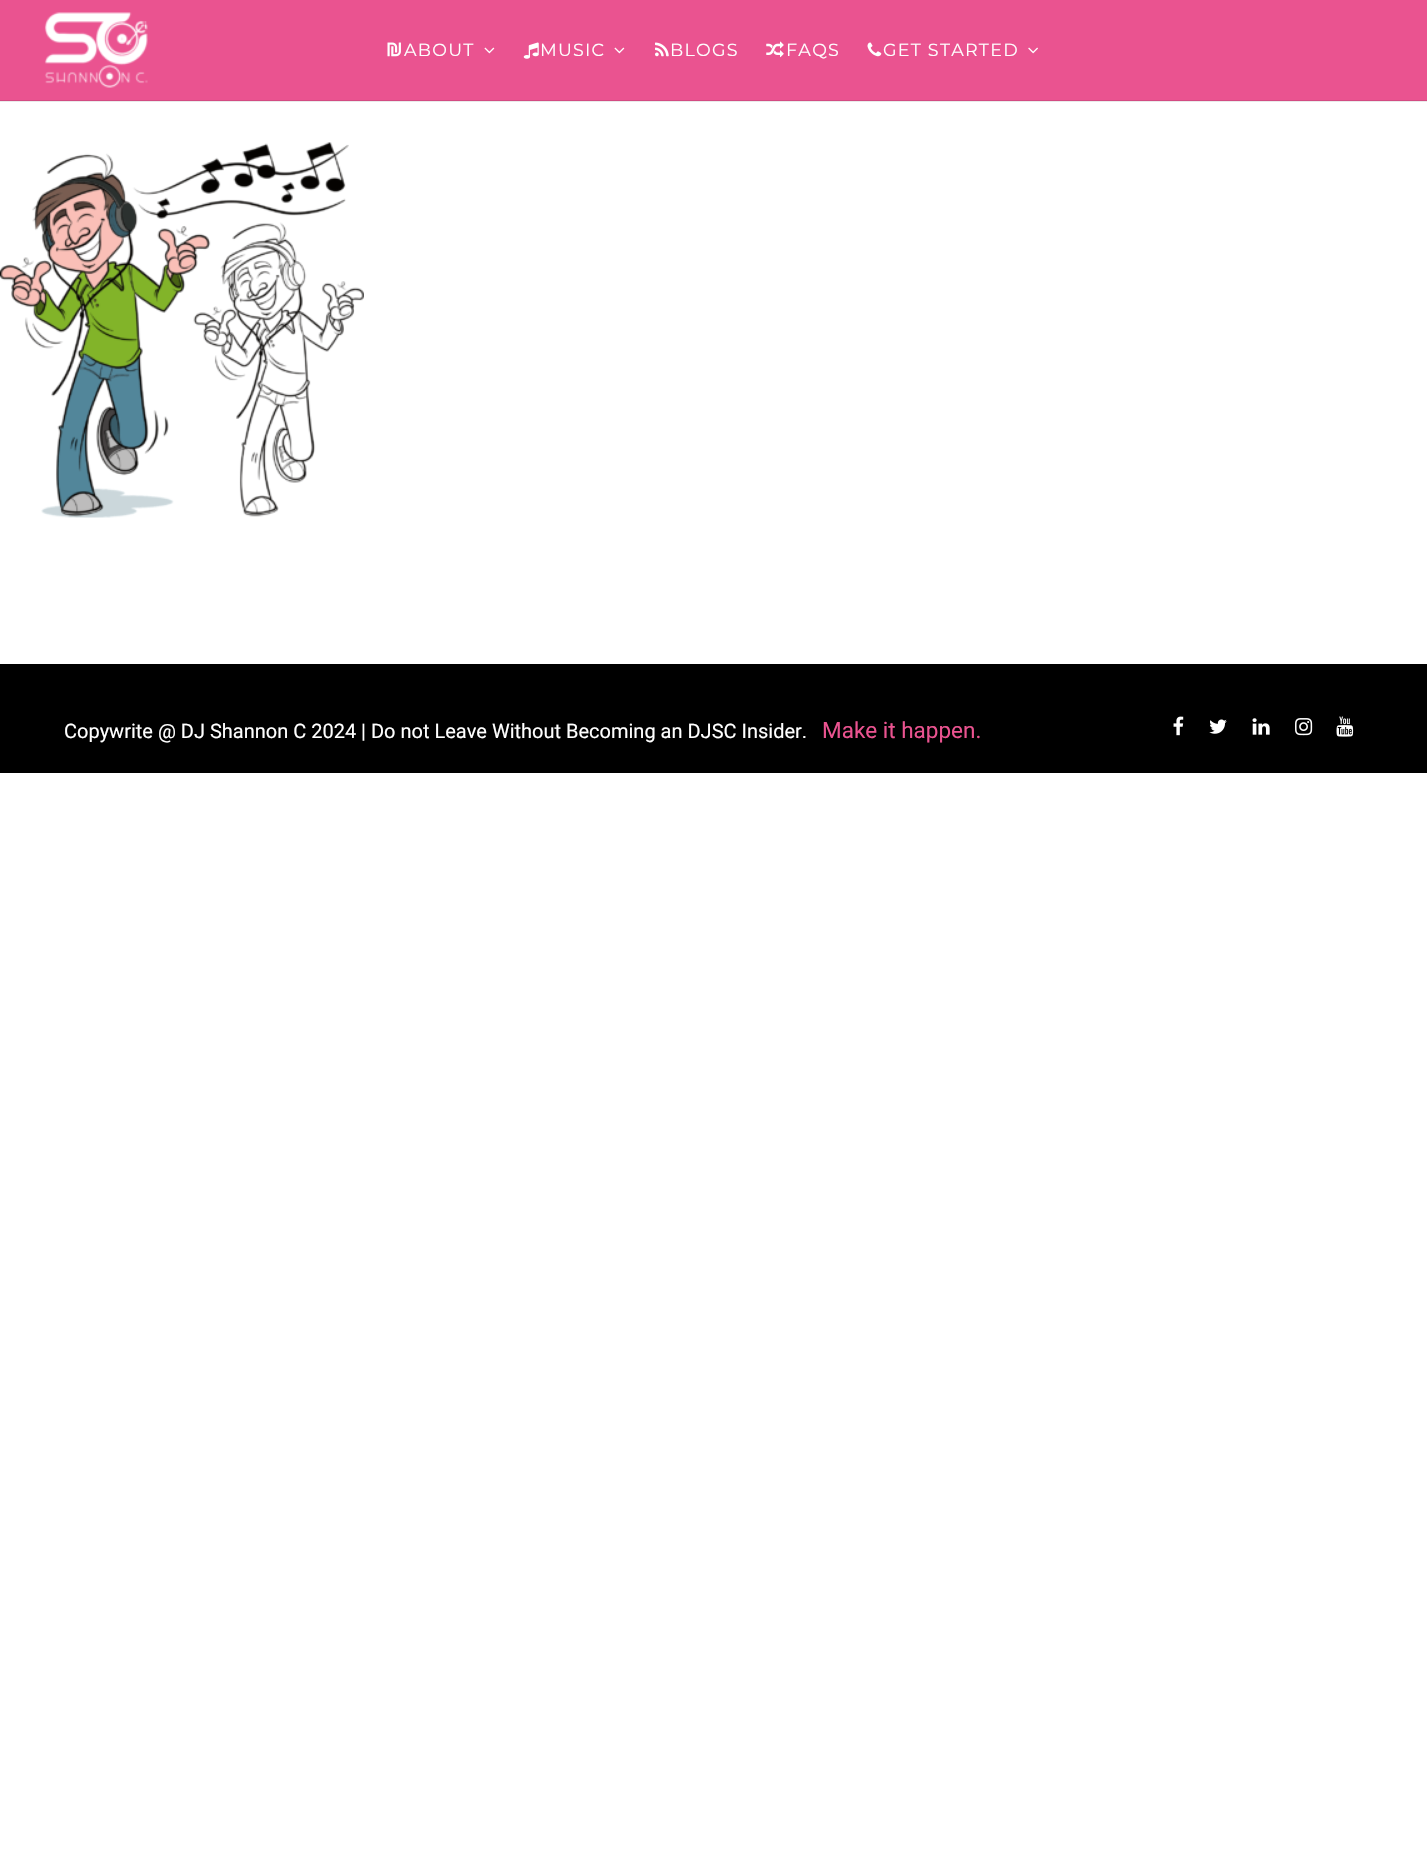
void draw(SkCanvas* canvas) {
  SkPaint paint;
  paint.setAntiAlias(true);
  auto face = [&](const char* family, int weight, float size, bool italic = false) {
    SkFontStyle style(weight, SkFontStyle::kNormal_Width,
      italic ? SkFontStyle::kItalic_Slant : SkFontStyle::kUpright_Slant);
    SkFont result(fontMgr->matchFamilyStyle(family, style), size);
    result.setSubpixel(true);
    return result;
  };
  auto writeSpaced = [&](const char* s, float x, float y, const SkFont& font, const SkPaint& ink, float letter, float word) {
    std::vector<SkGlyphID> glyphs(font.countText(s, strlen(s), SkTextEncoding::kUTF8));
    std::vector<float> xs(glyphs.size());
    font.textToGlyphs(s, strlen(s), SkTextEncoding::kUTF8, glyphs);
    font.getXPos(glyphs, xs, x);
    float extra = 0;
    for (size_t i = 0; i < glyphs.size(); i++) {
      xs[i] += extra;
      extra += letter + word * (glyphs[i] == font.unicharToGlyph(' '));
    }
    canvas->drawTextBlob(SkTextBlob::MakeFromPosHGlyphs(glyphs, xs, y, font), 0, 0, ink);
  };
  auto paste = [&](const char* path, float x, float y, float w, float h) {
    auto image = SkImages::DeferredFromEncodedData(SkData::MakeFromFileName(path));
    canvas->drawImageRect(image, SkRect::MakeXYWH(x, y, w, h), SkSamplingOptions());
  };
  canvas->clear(0xffffffff);
  paint.setColor(0xffea5390);
  canvas->drawRect(SkRect::MakeXYWH(0, 0, 1427, 100), paint);
  paint.setColor(0xffd34b82);
  canvas->drawRect(SkRect::MakeXYWH(0, 100, 1427, 1), paint);
  paste("img/1.png", 44, 12, 104, 76);
  paste("img/2.png", 387, 42, 14, 15);
  paste("img/3.png", 484, 47, 11, 7);
  paste("img/4.png", 523, 42, 16, 17);
  paste("img/3.png", 614, 47, 11, 7);
  paste("img/5.png", 655, 42, 14, 15);
  paste("img/6.png", 766, 41, 18, 17);
  paste("img/7.png", 867, 42, 15, 15);
  paste("img/8.png", 1028, 47, 10, 7);
  paint.setColor(0xffeaeaea);
  canvas->drawRect(SkRect::MakeXYWH(0, 101, 1427, 1), paint);
  paste("img/9.png", 0, 142, 364, 376);
  paint.setColor(0xff000000);
  canvas->drawRect(SkRect::MakeXYWH(0, 664, 1427, 109), paint);
  paste("img/10.png", 1173, 716, 11, 20);
  paste("img/11.png", 1209, 719, 18, 15);
  paste("img/12.png", 1252, 718, 18, 17);
  paste("img/13.png", 1295, 718, 18, 18);
  paste("img/14.png", 1336, 716, 18, 21);
  auto f0 = face("Montserrat", 400, 17.5f);
  paint.setColor(0xffffffff);
  {
    const struct { const char* s; float x, y; } items[] = {
      {"ABOUT", 404, 56},
      {"MUSIC", 540, 56},
      {"BLOGS", 670, 56},
      {"FAQS", 786, 56},
      {"GET STARTED", 883, 56},
    };
    for (auto [s, x, y] : items) {
      writeSpaced(s, x, y, f0, paint, 1.25f, 0);
    }
  }
  auto f1 = face("Roboto", 400, 20);
  canvas->drawString("Copywrite @ DJ Shannon C 2024 | Do not Leave Without Becoming an DJSC Insider.", 64, 738, f1, paint);
  auto f2 = face("Roboto", 400, 22.5f);
  paint.setColor(0xffea5390);
  canvas->drawString("Make it happen.", 822, 738, f2, paint);
}
